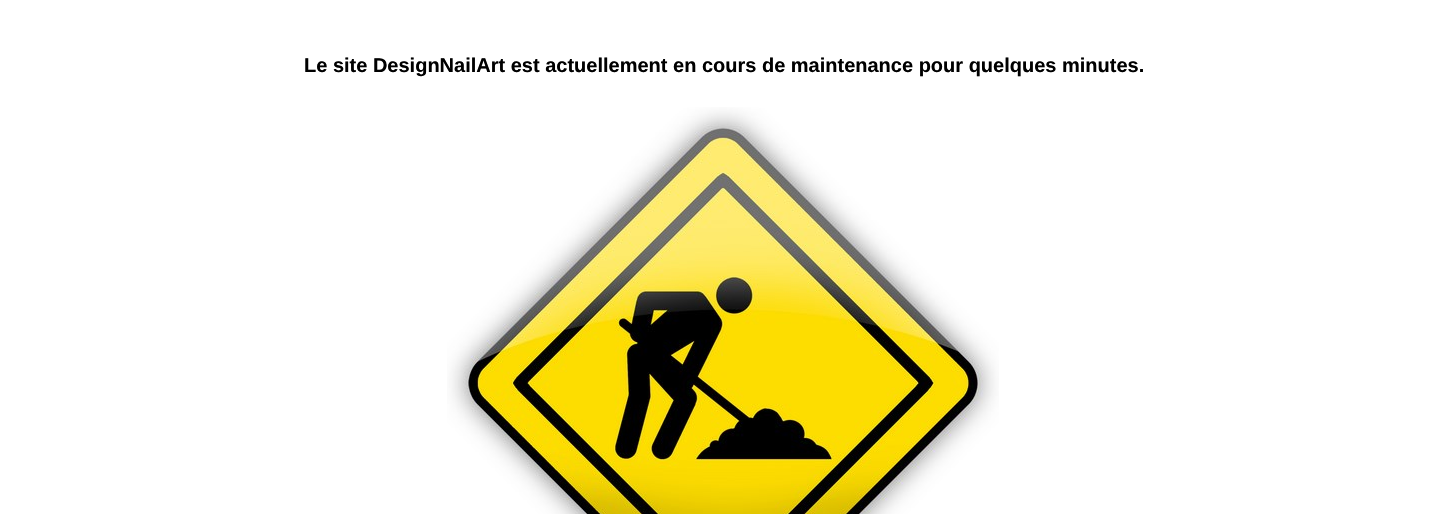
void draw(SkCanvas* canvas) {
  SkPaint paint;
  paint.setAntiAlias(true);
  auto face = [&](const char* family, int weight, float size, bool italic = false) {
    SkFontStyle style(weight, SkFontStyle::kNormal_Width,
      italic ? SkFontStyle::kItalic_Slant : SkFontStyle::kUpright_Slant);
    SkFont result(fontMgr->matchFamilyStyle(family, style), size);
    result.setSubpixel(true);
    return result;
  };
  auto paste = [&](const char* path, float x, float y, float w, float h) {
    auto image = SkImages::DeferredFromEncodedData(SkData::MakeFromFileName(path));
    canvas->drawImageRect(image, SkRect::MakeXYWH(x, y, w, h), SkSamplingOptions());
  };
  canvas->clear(0xffffffff);
  paste("img/1.png", 447, 107, 552, 407);
  auto f0 = face("Liberation Sans", 700, 20);
  paint.setColor(0xff000000);
  canvas->drawString("Le site DesignNailArt est actuellement en cours de maintenance pour quelques minutes.", 304, 72, f0, paint);
}
